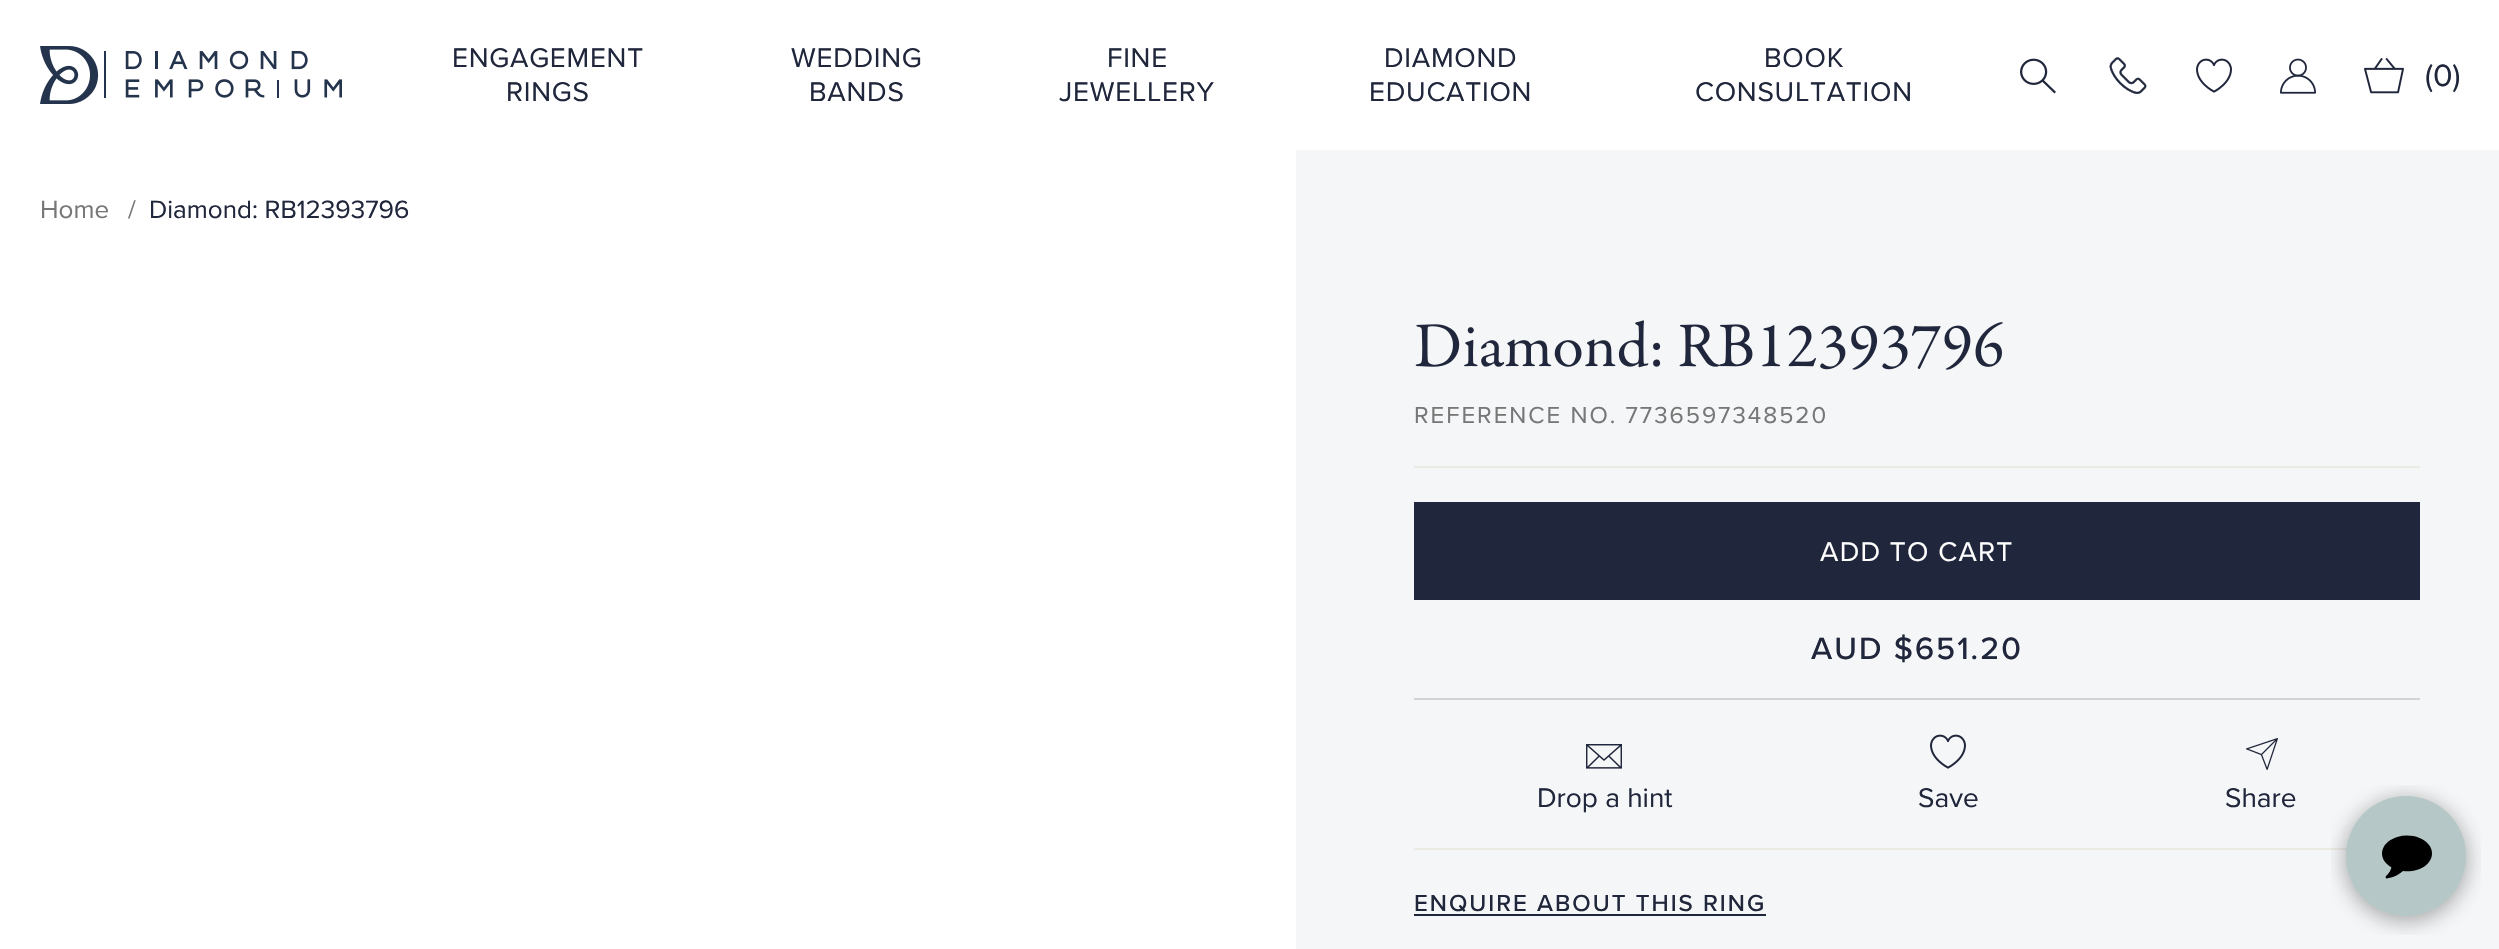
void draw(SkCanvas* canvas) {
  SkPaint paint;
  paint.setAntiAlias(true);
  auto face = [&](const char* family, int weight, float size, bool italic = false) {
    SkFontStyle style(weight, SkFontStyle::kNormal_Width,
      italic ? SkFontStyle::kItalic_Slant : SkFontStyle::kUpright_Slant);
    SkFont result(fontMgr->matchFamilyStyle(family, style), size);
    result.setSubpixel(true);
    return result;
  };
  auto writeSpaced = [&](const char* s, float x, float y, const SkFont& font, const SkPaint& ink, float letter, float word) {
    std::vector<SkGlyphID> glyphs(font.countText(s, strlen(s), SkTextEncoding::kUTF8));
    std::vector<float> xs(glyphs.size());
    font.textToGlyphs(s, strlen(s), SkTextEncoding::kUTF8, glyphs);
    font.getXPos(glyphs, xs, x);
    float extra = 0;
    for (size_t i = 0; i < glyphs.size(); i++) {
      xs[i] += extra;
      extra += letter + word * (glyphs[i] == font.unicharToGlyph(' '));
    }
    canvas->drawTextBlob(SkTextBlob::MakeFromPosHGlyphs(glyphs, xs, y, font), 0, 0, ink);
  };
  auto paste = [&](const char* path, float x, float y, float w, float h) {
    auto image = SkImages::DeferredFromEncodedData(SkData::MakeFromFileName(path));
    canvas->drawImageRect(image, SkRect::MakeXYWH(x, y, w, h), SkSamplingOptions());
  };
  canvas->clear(0xffffffff);
  paste("img/1.png", 40, 46, 302, 58);
  paste("img/2.png", 2020, 58, 36, 36);
  paste("img/3.png", 2109, 57, 38, 37);
  paste("img/4.png", 2196, 58, 36, 35);
  paste("img/5.png", 2280, 58, 36, 36);
  paste("img/6.png", 2364, 58, 40, 36);
  paint.setColor(0xfff5f6f7);
  canvas->drawRect(SkRect::MakeXYWH(1296, 150, 1203, 799), paint);
  paste("img/7.png", 1415, 320, 588, 50);
  {
    const struct { float x, y, w, h; SkColor color; } items[] = {
      {1414, 466, 1006, 2, 0xffebeae3},
      {1414, 698, 1006, 2, 0xffd3d3d3},
      {1414, 502, 1006, 98, 0xff20263b},
      {1414, 848, 933, 2, 0xffebeae3},
    };
    for (auto [x, y, w, h, color] : items) {
      paint.setColor(color);
      canvas->drawRect(SkRect::MakeXYWH(x, y, w, h), paint);
    }
  }
  paste("img/8.png", 1586, 744, 36, 25);
  paste("img/9.png", 1930, 734, 36, 35);
  paste("img/10.png", 2246, 738, 32, 32);
  paint.setColor(0xff20263b);
  canvas->drawRect(SkRect::MakeXYWH(1414, 914, 352, 2), paint);
  paste("img/11.png", 2331, 785, 150, 150);
  auto f0 = face("Proxima Nova", 400, 28);
  {
    const struct { const char* s; float x, y; } items[] = {
      {"ENGAGEMENT", 452, 67},
      {"RINGS", 506, 101},
      {"WEDDING", 791, 67},
      {"BANDS", 809, 101},
      {"FINE", 1107, 67},
      {"JEWELLERY", 1059, 101},
      {"DIAMOND", 1384, 67},
      {"EDUCATION", 1369, 101},
      {"BOOK", 1764, 67},
      {"CONSULTATION", 1695, 101},
    };
    for (auto [s, x, y] : items) {
      writeSpaced(s, x, y, f0, paint, 0.75f, 0);
    }
  }
  auto f1 = face("Proxima Nova", 400, 32);
  canvas->drawString("(0)", 2425, 86, f1, paint);
  auto f2 = face("Proxima Nova", 400, 26);
  paint.setColor(0xff777777);
  canvas->drawString("Home", 40, 218, f2, paint);
  canvas->drawString("/", 128, 218, f2, paint);
  paint.setColor(0xff20263b);
  canvas->drawString("Diamond: RB12393796", 149, 218, f2, paint);
  auto f3 = face("Proxima Nova", 400, 24);
  paint.setColor(0xff777777);
  writeSpaced("REFERENCE NO. 7736597348520", 1414, 423, f3, paint, 2, 0);
  paint.setColor(0xffffffff);
  writeSpaced("ADD TO CART", 1820, 561, f0, paint, 1.25f, 0);
  auto f4 = face("Proxima Nova", 500, 32);
  paint.setColor(0xff20263b);
  writeSpaced("AUD $651.20", 1811, 659, f4, paint, 2, 0);
  {
    const struct { const char* s; float x, y; } items[] = {
      {"Drop a hint", 1537, 807},
      {"Save", 1918, 807},
      {"Share", 2225, 807},
    };
    for (auto [s, x, y] : items) {
      canvas->drawString(s, x, y, f0, paint);
    }
  }
  auto f5 = face("Proxima Nova", 500, 24);
  writeSpaced("ENQUIRE ABOUT THIS RING", 1414, 911, f5, paint, 2, 0);
}
